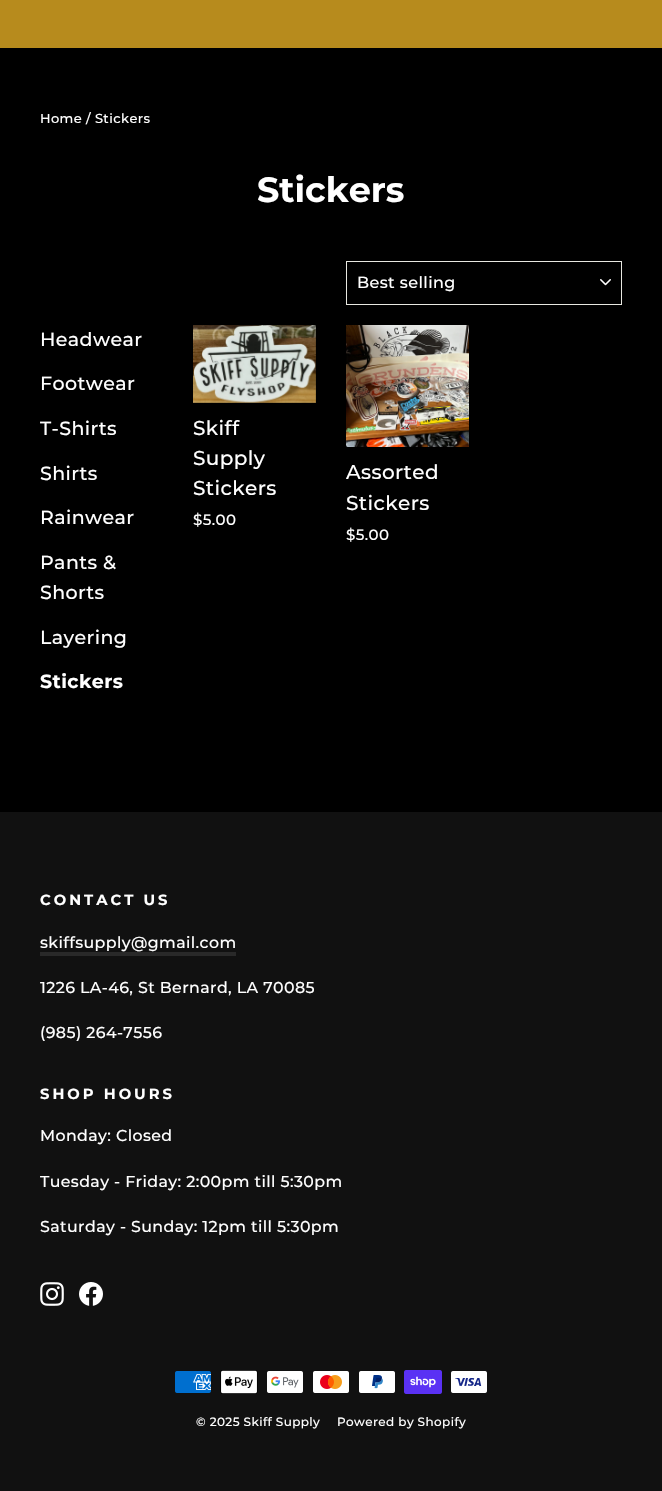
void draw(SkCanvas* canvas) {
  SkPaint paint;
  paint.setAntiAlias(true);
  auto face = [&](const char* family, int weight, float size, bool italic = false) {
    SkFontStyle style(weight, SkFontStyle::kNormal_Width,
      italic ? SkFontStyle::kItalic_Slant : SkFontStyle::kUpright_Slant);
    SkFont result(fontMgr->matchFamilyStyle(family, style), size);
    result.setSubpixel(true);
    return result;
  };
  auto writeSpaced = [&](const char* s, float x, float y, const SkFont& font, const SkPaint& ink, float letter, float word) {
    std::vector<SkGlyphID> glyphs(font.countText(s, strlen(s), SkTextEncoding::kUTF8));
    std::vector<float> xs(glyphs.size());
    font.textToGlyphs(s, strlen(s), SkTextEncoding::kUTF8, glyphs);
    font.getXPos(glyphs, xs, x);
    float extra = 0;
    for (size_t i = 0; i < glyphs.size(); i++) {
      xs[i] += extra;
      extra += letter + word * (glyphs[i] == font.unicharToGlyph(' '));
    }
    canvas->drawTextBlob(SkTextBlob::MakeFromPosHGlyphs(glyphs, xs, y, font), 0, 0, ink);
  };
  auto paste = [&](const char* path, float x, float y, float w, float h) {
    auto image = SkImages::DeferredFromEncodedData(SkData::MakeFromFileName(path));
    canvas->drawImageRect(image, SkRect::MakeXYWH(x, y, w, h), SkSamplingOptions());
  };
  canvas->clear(0xff000000);
  paint.setColor(0xffb78b1d);
  canvas->drawRect(SkRect::MakeXYWH(0, 0, 662, 48), paint);
  paste("img/1.png", 600, 279, 11, 7);
  paint.setStroke(true);
  paint.setStrokeWidth(1);
  paint.setColor(0xffe8e8e1);
  canvas->drawRect(SkRect::MakeXYWH(346.5f, 261.5f, 275, 43), paint);
  paste("img/2.png", 193, 325, 123, 78);
  paste("img/3.png", 346, 325, 123, 122);
  paint.setStroke(false);
  paint.setColor(0xff111111);
  canvas->drawRect(SkRect::MakeXYWH(0, 812, 662, 679), paint);
  paint.setColor(0xff292929);
  canvas->drawRect(SkRect::MakeXYWH(40, 952, 196, 4), paint);
  paste("img/4.png", 40, 1282, 24, 24);
  paste("img/5.png", 79, 1282, 24, 24);
  paste("img/6.png", 175, 1371, 36, 22);
  paste("img/7.png", 220, 1370, 38, 24);
  paste("img/8.png", 267, 1371, 36, 22);
  paste("img/9.png", 313, 1371, 36, 22);
  paste("img/10.png", 359, 1371, 36, 22);
  paste("img/11.png", 404, 1370, 38, 24);
  paste("img/12.png", 451, 1371, 36, 22);
  auto f0 = face("Montserrat", 500, 13);
  paint.setColor(0xffffffff);
  writeSpaced("Home / Stickers", 40, 123, f0, paint, 0.4f, 0);
  auto f1 = face("Montserrat", 700, 35);
  canvas->drawString("Stickers", 257, 202, f1, paint);
  auto f2 = face("Montserrat", 500, 16);
  writeSpaced("Best selling", 357, 288, f2, paint, 0.4f, 0);
  auto f3 = face("Montserrat", 500, 19);
  {
    const struct { const char* s; float x, y; } items[] = {
      {"Headwear", 40, 346},
      {"Footwear", 40, 390},
      {"T-Shirts", 40, 435},
      {"Shirts", 40, 480},
      {"Rainwear", 40, 524},
      {"Pants &", 40, 569},
      {"Shorts", 40, 599},
      {"Layering", 40, 644},
    };
    for (auto [s, x, y] : items) {
      writeSpaced(s, x, y, f3, paint, 0.4f, 0);
    }
  }
  auto f4 = face("Montserrat", 700, 19);
  writeSpaced("Stickers", 40, 688, f4, paint, 0.4f, 0);
  auto f5 = face("Montserrat", 500, 20);
  {
    const struct { const char* s; float x, y; } items[] = {
      {"Skiff", 193, 435},
      {"Supply", 193, 465},
      {"Stickers", 193, 495},
    };
    for (auto [s, x, y] : items) {
      writeSpaced(s, x, y, f5, paint, 0.4f, 0);
    }
  }
  auto f6 = face("Montserrat", 500, 15);
  writeSpaced("$5.00", 193, 525, f6, paint, 0.4f, 0);
  writeSpaced("Assorted", 346, 479, f5, paint, 0.4f, 0);
  writeSpaced("Stickers", 346, 510, f5, paint, 0.4f, 0);
  writeSpaced("$5.00", 346, 540, f6, paint, 0.4f, 0);
  auto f7 = face("Montserrat", 700, 14.75f);
  writeSpaced("CONTACT US", 40, 905, f7, paint, 3, 0);
  auto f8 = face("Montserrat", 500, 15.8f);
  {
    const struct { const char* s; float x, y; } items[] = {
      {"skiffsupply@gmail.com", 40, 948},
      {"1226 LA-46, St Bernard, LA 70085", 40, 993},
      {"(985) 264-7556", 40, 1038},
    };
    for (auto [s, x, y] : items) {
      writeSpaced(s, x, y, f8, paint, 0.4f, 0);
    }
  }
  writeSpaced("SHOP HOURS", 40, 1099, f7, paint, 3, 0);
  {
    const struct { const char* s; float x, y; } items[] = {
      {"Monday: Closed", 40, 1141},
      {"Tuesday - Friday: 2:00pm till 5:30pm", 40, 1187},
      {"Saturday - Sunday: 12pm till 5:30pm", 40, 1232},
    };
    for (auto [s, x, y] : items) {
      writeSpaced(s, x, y, f8, paint, 0.4f, 0);
    }
  }
  auto f9 = face("Montserrat", 500, 12);
  writeSpaced("© 2025 Skiff Supply", 196, 1426, f9, paint, 0.4f, 0);
  writeSpaced("Powered by Shopify", 337, 1426, f9, paint, 0.4f, 0);
}
